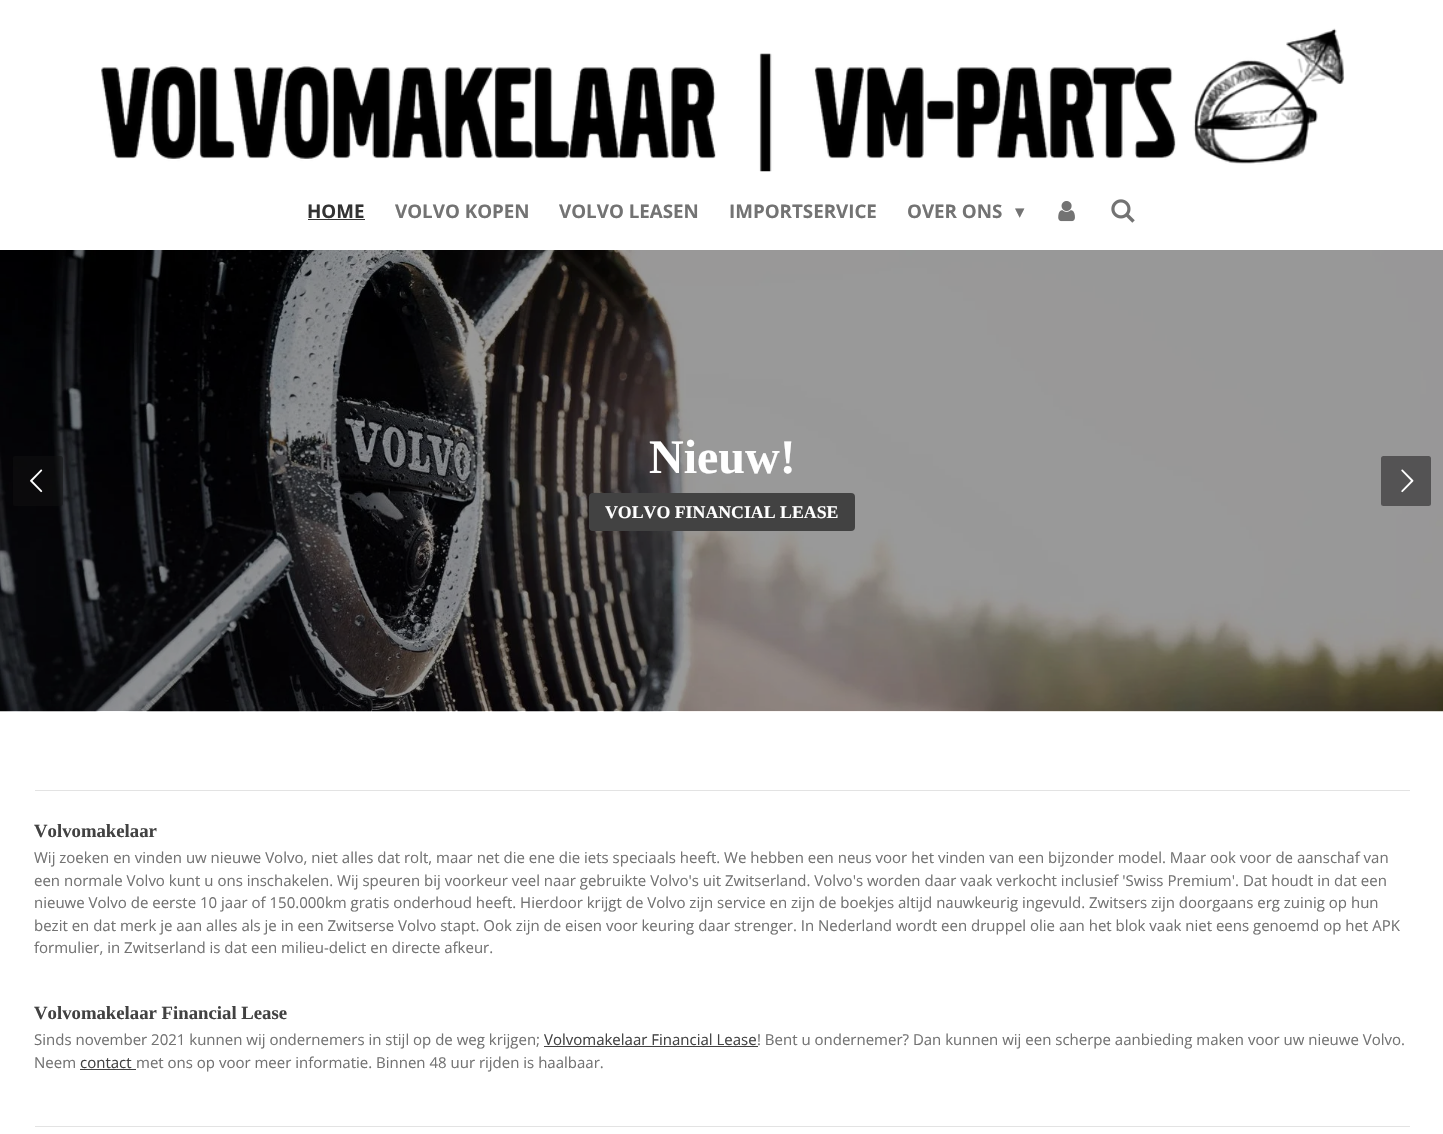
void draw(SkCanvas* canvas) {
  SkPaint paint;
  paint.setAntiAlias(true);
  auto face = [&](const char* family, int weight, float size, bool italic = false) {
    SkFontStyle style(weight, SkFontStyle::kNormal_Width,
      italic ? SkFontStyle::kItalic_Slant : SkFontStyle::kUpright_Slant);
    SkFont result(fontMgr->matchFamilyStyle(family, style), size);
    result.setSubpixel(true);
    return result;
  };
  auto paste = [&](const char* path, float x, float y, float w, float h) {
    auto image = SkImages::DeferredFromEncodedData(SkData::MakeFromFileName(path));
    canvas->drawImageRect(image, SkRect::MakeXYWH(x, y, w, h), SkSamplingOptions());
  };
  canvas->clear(0xffffffff);
  paste("img/1.png", 101, 28, 1244, 144);
  paint.setColor(0xff333333);
  canvas->drawRect(SkRect::MakeXYWH(308, 219, 57, 1), paint);
  paste("img/2.png", 1058, 201, 17, 21);
  paste("img/3.png", 1111, 199, 24, 24);
  paste("img/4.png", 0, 250, 1443, 462);
  paint.setColor(0xff424242);
  canvas->drawRoundRect(SkRect::MakeXYWH(589, 493, 266, 38), 4, 4, paint);
  paint.setColor(0x800f0f0f);
  canvas->drawRoundRect(SkRect::MakeXYWH(13, 456, 50, 50), 2.5f, 2.5f, paint);
  paste("img/5.png", 30, 469, 13, 24);
  paint.setColor(0xff545354);
  canvas->drawRoundRect(SkRect::MakeXYWH(1381, 456, 50, 50), 2.5f, 2.5f, paint);
  paste("img/6.png", 1401, 469, 13, 24);
  {
    const struct { float x, y, w, h; SkColor color; } items[] = {
      {35, 790, 1375, 1, 0xffe3e3e3},
      {544, 1046, 214, 1, 0xff424242},
      {80, 1069, 56, 1, 0xff424242},
      {35, 1126, 1375, 1, 0xffe3e3e3},
    };
    for (auto [x, y, w, h, color] : items) {
      paint.setColor(color);
      canvas->drawRect(SkRect::MakeXYWH(x, y, w, h), paint);
    }
  }
  auto f0 = face("Open Sans", 700, 18.75f);
  paint.setColor(0xff333333);
  canvas->drawString("HOME", 307, 218, f0, paint);
  paint.setColor(0xff737373);
  {
    const struct { const char* s; float x, y; } items[] = {
      {"VOLVO KOPEN", 395, 218},
      {"VOLVO LEASEN", 559, 218},
      {"IMPORTSERVICE", 729, 218},
      {"OVER ONS", 907, 218},
    };
    for (auto [s, x, y] : items) {
      canvas->drawString(s, x, y, f0, paint);
    }
  }
  auto f1 = face("DejaVu Sans", 400, 18.75f);
  canvas->drawString("▾", 1015, 218, f1, paint);
  auto f2 = face("Liberation Serif", 700, 48);
  paint.setColor(0xffffffff);
  canvas->drawString("Nieuw!", 649, 473, f2, paint);
  auto f3 = face("Liberation Serif", 700, 17.8f);
  canvas->drawString("VOLVO FINANCIAL LEASE", 605, 518, f3, paint);
  auto f4 = face("Liberation Serif", 700, 18.75f);
  paint.setColor(0xff424242);
  canvas->drawString("Volvomakelaar", 34, 837, f4, paint);
  auto f5 = face("Open Sans", 400, 15);
  paint.setColor(0xff737373);
  {
    const struct { const char* s; float x, y; } items[] = {
      {"Wij zoeken en vinden uw nieuwe Volvo, niet alles dat rolt, maar net die ene die iets speciaals heeft. We hebben een neus voor het vinden van een bijzonder model. Maar ook voor de aanschaf van", 34, 863},
      {"een normale Volvo kunt u ons inschakelen. Wij speuren bij voorkeur veel naar gebruikte Volvo's uit Zwitserland. Volvo's worden daar vaak verkocht inclusief 'Swiss Premium'. Dat houdt in dat een", 34, 886},
      {"nieuwe Volvo de eerste 10 jaar of 150.000km gratis onderhoud heeft. Hierdoor krijgt de Volvo zijn service en zijn de boekjes altijd nauwkeurig ingevuld. Zwitsers zijn doorgaans erg zuinig op hun", 34, 908},
      {"bezit en dat merk je aan alles als je in een Zwitserse Volvo stapt. Ook zijn de eisen voor keuring daar strenger. In Nederland wordt een druppel olie aan het blok vaak niet eens genoemd op het APK", 34, 931},
      {"formulier, in Zwitserland is dat een milieu-delict en directe afkeur.", 34, 953},
    };
    for (auto [s, x, y] : items) {
      canvas->drawString(s, x, y, f5, paint);
    }
  }
  paint.setColor(0xff424242);
  canvas->drawString("Volvomakelaar Financial Lease", 34, 1019, f4, paint);
  paint.setColor(0xff737373);
  canvas->drawString("Sinds november 2021 kunnen wij ondernemers in stijl op de weg krijgen;", 34, 1045, f5, paint);
  paint.setColor(0xff424242);
  canvas->drawString("Volvomakelaar Financial Lease", 544, 1045, f5, paint);
  paint.setColor(0xff737373);
  canvas->drawString("! Bent u ondernemer? Dan kunnen wij een scherpe aanbieding maken voor uw nieuwe Volvo.", 757, 1045, f5, paint);
  canvas->drawString("Neem", 34, 1068, f5, paint);
  paint.setColor(0xff424242);
  canvas->drawString("contact", 80, 1068, f5, paint);
  paint.setColor(0xff737373);
  canvas->drawString("met ons op voor meer informatie. Binnen 48 uur rijden is haalbaar.", 136, 1068, f5, paint);
}
